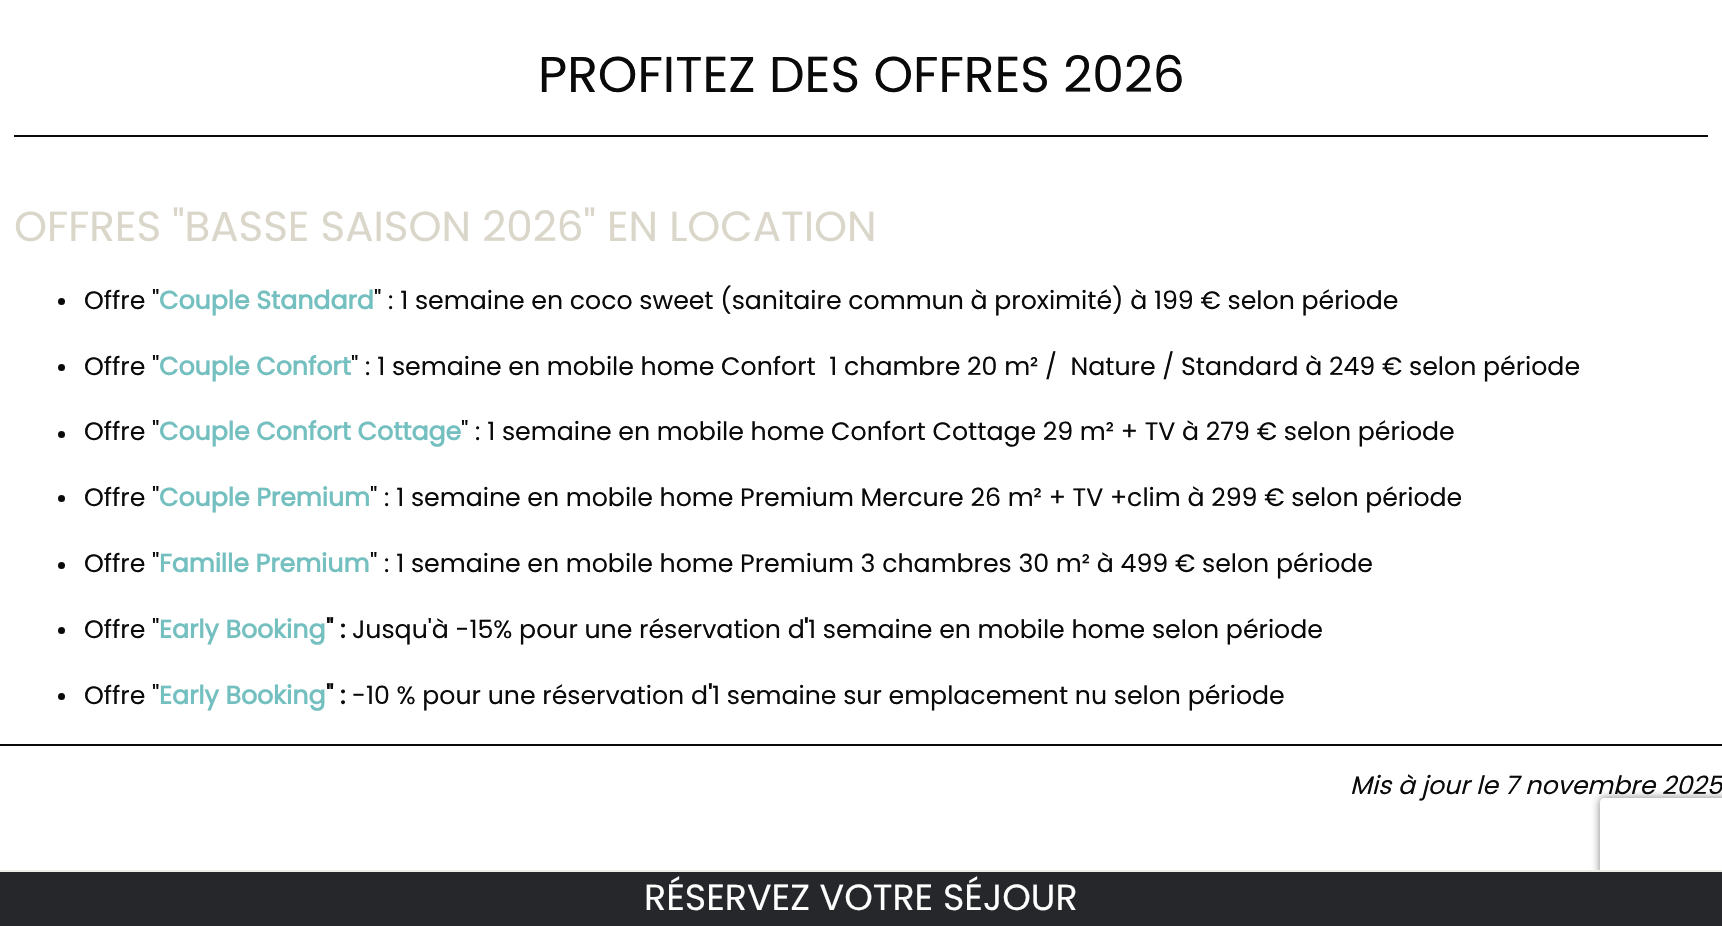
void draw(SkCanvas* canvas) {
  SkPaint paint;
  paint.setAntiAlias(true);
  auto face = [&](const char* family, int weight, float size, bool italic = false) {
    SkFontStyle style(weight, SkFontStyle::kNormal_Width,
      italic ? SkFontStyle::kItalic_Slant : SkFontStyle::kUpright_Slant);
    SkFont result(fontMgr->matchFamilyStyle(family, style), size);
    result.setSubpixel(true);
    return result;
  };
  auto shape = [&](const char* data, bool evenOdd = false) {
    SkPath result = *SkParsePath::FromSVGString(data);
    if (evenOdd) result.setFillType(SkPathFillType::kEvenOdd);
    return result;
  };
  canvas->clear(0xffffffff);
  paint.setColor(0xff0a0a0a);
  canvas->drawRect(SkRect::MakeXYWH(14, 135, 1694, 2), paint);
  canvas->drawCircle(61.5f, 301.5f, 3.5f, paint);
  canvas->drawCircle(61.5f, 367.5f, 3.5f, paint);
  canvas->drawCircle(61.5f, 434.5f, 3.5f, paint);
  canvas->drawCircle(61.5f, 498.5f, 3.5f, paint);
  canvas->drawCircle(61.5f, 565.5f, 3.5f, paint);
  canvas->drawCircle(61.5f, 630.5f, 3.5f, paint);
  canvas->drawCircle(61.5f, 696.5f, 3.5f, paint);
  canvas->drawRect(SkRect::MakeXYWH(0, 744, 1722, 2), paint);
  canvas->save();
  canvas->clipPath(shape("M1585 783H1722V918H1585ZM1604 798H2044C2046 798 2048 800 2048 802V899C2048 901 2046 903 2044 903H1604C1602 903 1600 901 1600 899V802C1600 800 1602 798 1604 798Z", true), true);
  paint.setColor(0xff808080);
  paint.setMaskFilter(SkMaskFilter::MakeBlur(kNormal_SkBlurStyle, 4.5f));
  canvas->drawRoundRect(SkRect::MakeXYWH(1600, 798, 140, 105), 4, 4, paint);
  paint.setMaskFilter(nullptr);
  canvas->restore();
  paint.setColor(0xff25272a);
  canvas->drawRect(SkRect::MakeXYWH(0, 872, 1722, 54), paint);
  paint.setColor(0xffeeeee8);
  canvas->drawRect(SkRect::MakeXYWH(0, 870, 1722, 2), paint);
  auto f0 = face("Poppins", 400, 50.4f);
  paint.setColor(0xff0a0a0a);
  canvas->drawString("PROFITEZ DES OFFRES 2026", 538, 92, f0, paint);
  auto f1 = face("Poppins", 400, 42);
  paint.setColor(0xffdad7ca);
  canvas->drawString("OFFRES \"BASSE SAISON 2026\" EN LOCATION", 14, 241, f1, paint);
  auto f2 = face("Poppins", 400, 25.2f);
  paint.setColor(0xff0a0a0a);
  canvas->drawString("Offre \"", 84, 309, f2, paint);
  auto f3 = face("Poppins", 700, 25.2f);
  paint.setColor(0xff74bfbf);
  canvas->drawString("Couple Standard", 159, 309, f3, paint);
  paint.setColor(0xff0a0a0a);
  canvas->drawString("\" : 1 semaine en coco sweet (sanitaire commun à proximité) à 199 € selon période", 374, 309, f2, paint);
  canvas->drawString("Offre \"", 84, 375, f2, paint);
  paint.setColor(0xff74bfbf);
  canvas->drawString("Couple Confort", 159, 375, f3, paint);
  paint.setColor(0xff0a0a0a);
  canvas->drawString("\" : 1 semaine en mobile home Confort  1 chambre 20 m² /  Nature / Standard à 249 € selon période", 351, 375, f2, paint);
  canvas->drawString("Offre \"", 84, 440, f2, paint);
  paint.setColor(0xff74bfbf);
  canvas->drawString("Couple Confort Cottage", 159, 440, f3, paint);
  paint.setColor(0xff0a0a0a);
  canvas->drawString("\" : 1 semaine en mobile home Confort Cottage 29 m² + TV à 279 € selon période", 461, 440, f2, paint);
  canvas->drawString("Offre \"", 84, 506, f2, paint);
  paint.setColor(0xff74bfbf);
  canvas->drawString("Couple Premium", 159, 506, f3, paint);
  paint.setColor(0xff0a0a0a);
  canvas->drawString("\" : 1 semaine en mobile home Premium Mercure 26 m² + TV +clim à 299 € selon période", 370, 506, f2, paint);
  canvas->drawString("Offre \"", 84, 572, f2, paint);
  paint.setColor(0xff74bfbf);
  canvas->drawString("Famille Premium", 159, 572, f3, paint);
  paint.setColor(0xff0a0a0a);
  canvas->drawString("\" : 1 semaine en mobile home Premium 3 chambres 30 m² à 499 € selon période", 370, 572, f2, paint);
  canvas->drawString("Offre \"", 84, 638, f2, paint);
  paint.setColor(0xff74bfbf);
  canvas->drawString("Early Booking", 159, 638, f3, paint);
  paint.setColor(0xff0a0a0a);
  canvas->drawString("\" :", 326, 638, f3, paint);
  canvas->drawString("Jusqu'à -15% pour une réservation d", 352, 638, f2, paint);
  canvas->drawString("'", 804, 638, f3, paint);
  canvas->drawString("1 semaine en mobile home selon période", 808, 638, f2, paint);
  canvas->drawString("Offre \"", 84, 704, f2, paint);
  paint.setColor(0xff74bfbf);
  canvas->drawString("Early Booking", 159, 704, f3, paint);
  paint.setColor(0xff0a0a0a);
  canvas->drawString("\" :", 326, 704, f3, paint);
  canvas->drawString("-10 % pour une réservation d", 352, 704, f2, paint);
  canvas->drawString("'", 708, 704, f3, paint);
  canvas->drawString("1 semaine sur emplacement nu selon période", 712, 704, f2, paint);
  auto f4 = face("Poppins", 400, 25.2f, true);
  canvas->drawString("Mis à jour le 7 novembre 2025", 1350, 794, f4, paint);
  auto f5 = face("Poppins", 400, 36.4f);
  paint.setColor(0xffffffff);
  canvas->drawString("RÉSERVEZ VOTRE SÉJOUR", 644, 910, f5, paint);
}
